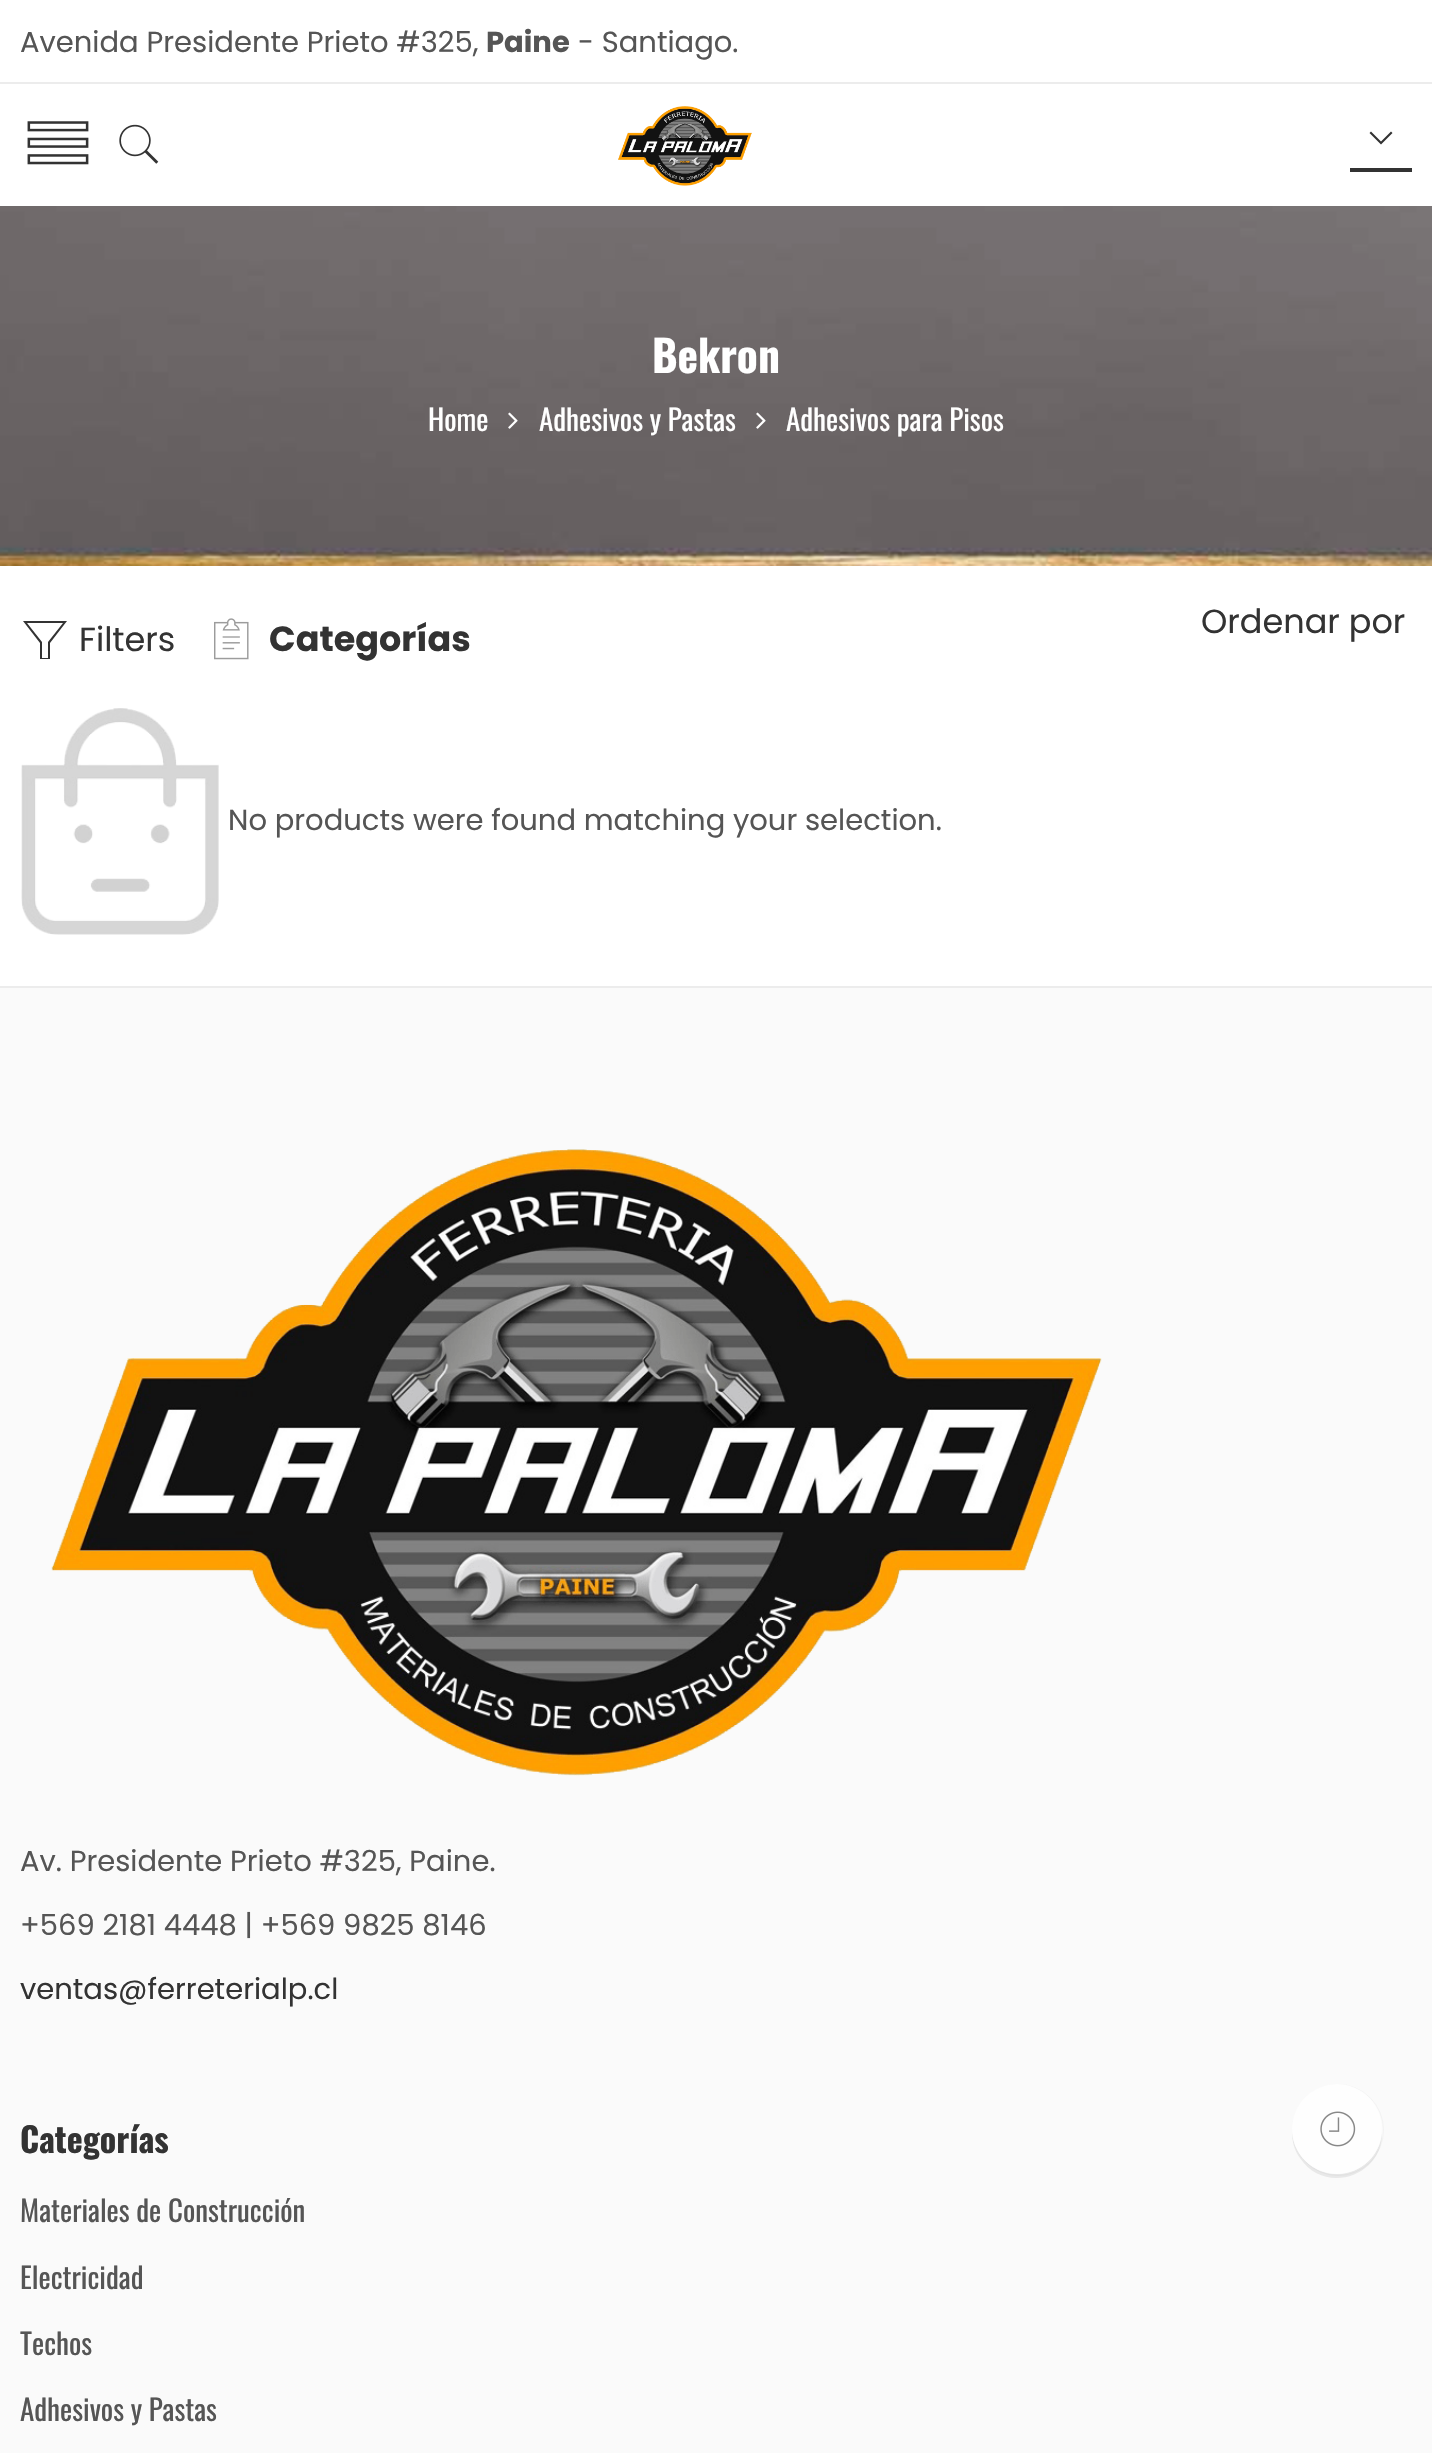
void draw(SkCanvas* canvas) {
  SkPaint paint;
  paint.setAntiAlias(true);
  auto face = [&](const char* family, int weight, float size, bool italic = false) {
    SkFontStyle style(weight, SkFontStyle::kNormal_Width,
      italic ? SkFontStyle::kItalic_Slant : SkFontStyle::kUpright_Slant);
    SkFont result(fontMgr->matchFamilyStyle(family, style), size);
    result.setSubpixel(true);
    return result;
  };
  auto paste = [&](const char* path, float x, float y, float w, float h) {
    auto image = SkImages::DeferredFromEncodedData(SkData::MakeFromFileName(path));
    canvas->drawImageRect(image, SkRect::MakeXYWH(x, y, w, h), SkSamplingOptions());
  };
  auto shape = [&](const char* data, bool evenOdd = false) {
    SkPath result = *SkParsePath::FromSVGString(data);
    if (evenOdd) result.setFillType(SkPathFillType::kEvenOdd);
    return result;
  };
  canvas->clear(0xffffffff);
  paint.setColor(0xffececec);
  canvas->drawRect(SkRect::MakeXYWH(0, 82, 1432, 2), paint);
  paste("img/1.png", 27, 121, 62, 44);
  paste("img/2.png", 119, 124, 40, 40);
  paste("img/3.png", 618, 106, 134, 80);
  paint.setColor(0xff333333);
  canvas->drawPath(shape("M1379.5 143L1381 144.5L1392.5 133L1391 131.5L1381 141.5L1371 131.5L1369.5 133Z"), paint);
  canvas->drawRect(SkRect::MakeXYWH(1350, 168, 62, 4), paint);
  paste("img/4.png", 0, 206, 1432, 360);
  paste("img/5.png", 508, 412, 10, 17);
  paste("img/6.png", 756, 412, 10, 17);
  canvas->drawPath(shape("M50 659H40V643L23 621H67L50 643ZM42 658H48V642L63 623H27L42 642Z"), paint);
  paste("img/7.png", 214, 618, 35, 42);
  paste("img/8.png", 21, 708, 198, 227);
  paint.setColor(0xfffafafa);
  canvas->drawRect(SkRect::MakeXYWH(0, 988, 1432, 1465), paint);
  paint.setColor(0xffececec);
  canvas->drawRect(SkRect::MakeXYWH(0, 986, 1432, 2), paint);
  paste("img/9.png", 51, 1149, 1051, 627);
  paint.setStroke(true);
  paint.setStrokeWidth(1);
  paint.setColor(0xfff3f3f3);
  canvas->drawCircle(1338, 2130, 45.5f, paint);
  paint.setStroke(false);
  paint.setColor(0x12000000);
  canvas->drawPath(shape("M1292 2131C1292 2141 1294 2150 1300 2158C1325 2196 1384 2176 1382 2131C1381 2155 1361 2174 1337 2174C1313 2174 1293 2155 1292 2131Z"), paint);
  paint.setColor(0xfffefefe);
  canvas->drawCircle(1337, 2129, 45, paint);
  paste("img/10.png", 1320, 2111, 36, 36);
  auto f0 = face("Poppins", 400, 29);
  paint.setColor(0xff555555);
  canvas->drawString("Avenida Presidente Prieto #325,", 20, 52, f0, paint);
  auto f1 = face("Poppins", 700, 29);
  canvas->drawString("Paine", 486, 52, f1, paint);
  canvas->drawString("- Santiago.", 578, 52, f0, paint);
  auto f2 = face("Oswald", 700, 43.5f);
  paint.setColor(0xffffffff);
  canvas->drawString("Bekron", 652, 373, f2, paint);
  auto f3 = face("Oswald", 400, 29);
  {
    const struct { const char* s; float x, y; } items[] = {
      {"Home", 428, 431},
      {"Adhesivos y Pastas", 539, 431},
      {"Adhesivos para Pisos", 786, 431},
    };
    for (auto [s, x, y] : items) {
      canvas->drawString(s, x, y, f3, paint);
    }
  }
  auto f4 = face("Poppins", 400, 33.5f);
  paint.setColor(0xff333333);
  canvas->drawString("Filters", 79, 651, f4, paint);
  auto f5 = face("Poppins", 700, 35);
  canvas->drawString("Categorías", 269, 651, f5, paint);
  canvas->drawString("Ordenar por", 1201, 633, f4, paint);
  paint.setColor(0xff555555);
  {
    const struct { const char* s; float x, y; } items[] = {
      {"No products were found matching your selection.", 228, 830},
      {"Av. Presidente Prieto #325, Paine.", 20, 1871},
      {"+569 2181 4448 | +569 9825 8146", 20, 1935},
    };
    for (auto [s, x, y] : items) {
      canvas->drawString(s, x, y, f0, paint);
    }
  }
  paint.setColor(0xff333333);
  canvas->drawString("ventas@ferreterialp.cl", 20, 1999, f0, paint);
  auto f6 = face("Oswald", 700, 34);
  canvas->drawString("Categorías", 20, 2153, f6, paint);
  paint.setColor(0xff555555);
  {
    const struct { const char* s; float x, y; } items[] = {
      {"Materiales de Construcción", 20, 2222},
      {"Electricidad", 20, 2289},
      {"Techos", 20, 2355},
      {"Adhesivos y Pastas", 20, 2421},
    };
    for (auto [s, x, y] : items) {
      canvas->drawString(s, x, y, f3, paint);
    }
  }
}
